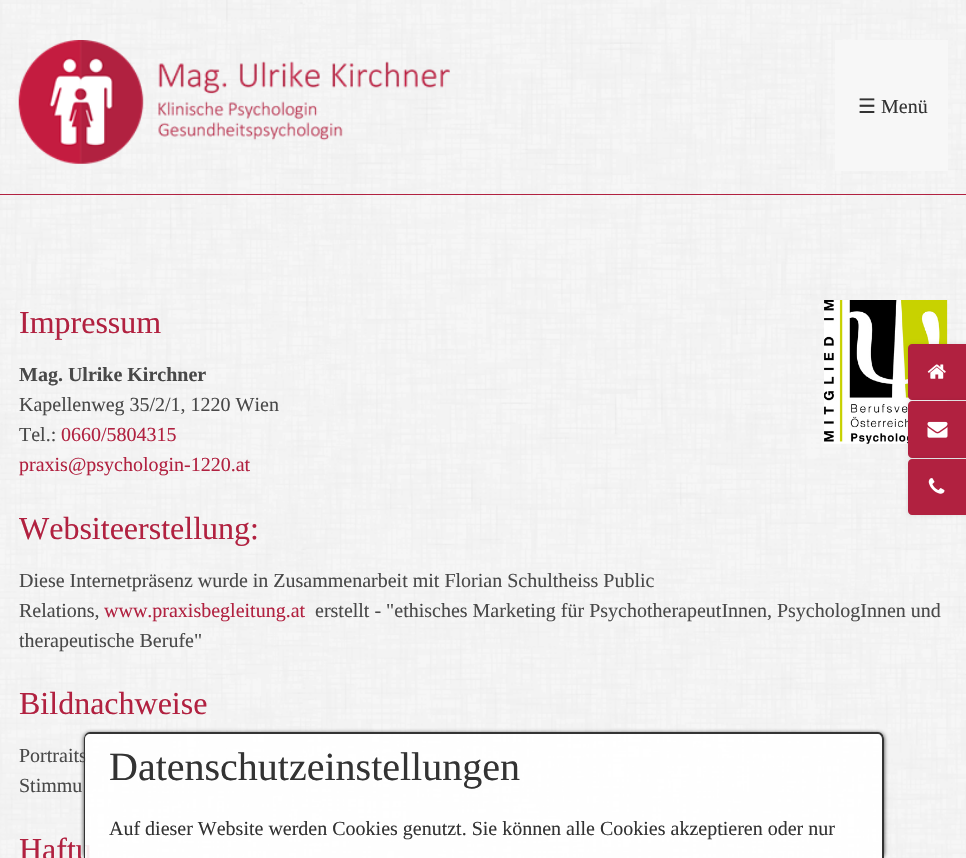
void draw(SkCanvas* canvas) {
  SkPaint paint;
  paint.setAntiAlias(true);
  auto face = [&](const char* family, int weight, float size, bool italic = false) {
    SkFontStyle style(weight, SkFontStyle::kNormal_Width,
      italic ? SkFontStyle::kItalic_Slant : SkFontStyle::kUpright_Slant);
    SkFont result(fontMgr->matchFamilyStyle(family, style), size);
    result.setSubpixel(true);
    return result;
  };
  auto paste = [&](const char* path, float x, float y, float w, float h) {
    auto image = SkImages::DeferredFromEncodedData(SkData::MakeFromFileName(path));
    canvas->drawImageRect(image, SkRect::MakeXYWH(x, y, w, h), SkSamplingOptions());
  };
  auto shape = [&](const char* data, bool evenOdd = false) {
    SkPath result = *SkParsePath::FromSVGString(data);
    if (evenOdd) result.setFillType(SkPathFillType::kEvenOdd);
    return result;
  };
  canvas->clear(0xffffffff);
  paste("img/1.png", 0, 0, 966, 858);
  paint.setColor(0xffb12140);
  canvas->drawRect(SkRect::MakeXYWH(0, 194, 966, 1), paint);
  paste("img/2.png", 18, 40, 432, 124);
  paint.setColor(0xfff7f7f7);
  canvas->drawRect(SkRect::MakeXYWH(835, 40, 113, 131), paint);
  paste("img/3.png", 824, 300, 124, 144);
  paint.setColor(0x1a000000);
  paint.setMaskFilter(SkMaskFilter::MakeBlur(kNormal_SkBlurStyle, 2));
  canvas->drawRoundRect(SkRect::MakeXYWH(908, 344, 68, 56), 4, 4, paint);
  paint.setMaskFilter(nullptr);
  paint.setColor(0xffb12140);
  canvas->drawPath(shape("M912 344H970V400H912C910 400 908 398 908 396V348C908 346 910 344 912 344Z"), paint);
  paste("img/4.png", 927, 364, 19, 15);
  paint.setColor(0x1a000000);
  paint.setMaskFilter(SkMaskFilter::MakeBlur(kNormal_SkBlurStyle, 2));
  canvas->drawRoundRect(SkRect::MakeXYWH(908, 401, 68, 57), 4, 4, paint);
  paint.setMaskFilter(nullptr);
  paint.setColor(0xffb12140);
  canvas->drawPath(shape("M912 401H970V458H912C910 458 908 456 908 454V405C908 403 910 401 912 401Z"), paint);
  paste("img/5.png", 927, 421, 21, 17);
  paint.setColor(0x1a000000);
  paint.setMaskFilter(SkMaskFilter::MakeBlur(kNormal_SkBlurStyle, 2));
  canvas->drawRoundRect(SkRect::MakeXYWH(908, 459, 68, 56), 4, 4, paint);
  paint.setMaskFilter(nullptr);
  paint.setColor(0xffb12140);
  canvas->drawPath(shape("M912 459H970V515H912C910 515 908 513 908 511V463C908 461 910 459 912 459Z"), paint);
  paste("img/6.png", 928, 478, 17, 16);
  canvas->save();
  canvas->clipPath(shape("M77 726H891V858H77ZM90 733H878C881.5 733 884 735.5 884 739V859H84V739C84 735.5 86.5 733 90 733Z", true), true);
  paint.setColor(0xcc000000);
  paint.setMaskFilter(SkMaskFilter::MakeBlur(kNormal_SkBlurStyle, 2));
  canvas->drawRoundRect(SkRect::MakeXYWH(84, 733, 800, 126), 6, 6, paint);
  paint.setMaskFilter(nullptr);
  canvas->restore();
  auto f0 = face("DejaVu Sans", 400, 20);
  paint.setColor(0xff333333);
  canvas->drawString("☰", 858, 113, f0, paint);
  auto f1 = face("Liberation Serif", 400, 20);
  canvas->drawString("Menü", 881, 113, f1, paint);
  auto f2 = face("Liberation Serif", 400, 32);
  paint.setColor(0xffb12140);
  canvas->drawString("Impressum", 19, 333, f2, paint);
  auto f3 = face("Liberation Serif", 700, 20);
  paint.setColor(0xff494949);
  canvas->drawString("Mag. Ulrike Kirchner", 19, 381, f3, paint);
  canvas->drawString("Kapellenweg 35/2/1, 1220 Wien", 19, 411, f1, paint);
  canvas->drawString("Tel.:", 19, 441, f1, paint);
  paint.setColor(0xffb12140);
  canvas->drawString("0660/5804315", 61, 441, f1, paint);
  canvas->drawString("praxis@psychologin-1220.at", 19, 471, f1, paint);
  canvas->drawString("Websiteerstellung:", 19, 539, f2, paint);
  paint.setColor(0xff494949);
  canvas->drawString("Diese Internetpräsenz wurde in Zusammenarbeit mit Florian Schultheiss Public", 19, 587, f1, paint);
  canvas->drawString("Relations,", 19, 617, f1, paint);
  paint.setColor(0xffb12140);
  canvas->drawString("www.praxisbegleitung.at", 104, 617, f1, paint);
  paint.setColor(0xff494949);
  canvas->drawString("erstellt - \"ethisches Marketing für PsychotherapeutInnen, PsychologInnen und", 315, 617, f1, paint);
  canvas->drawString("therapeutische Berufe\"", 19, 647, f1, paint);
  paint.setColor(0xffb12140);
  canvas->drawString("Bildnachweise", 19, 714, f2, paint);
  paint.setColor(0xff494949);
  canvas->drawString("Portraits", 19, 762, f1, paint);
  canvas->drawString("Stimmu", 19, 792, f1, paint);
  paint.setColor(0xffb12140);
  canvas->drawString("Haftu", 19, 860, f2, paint);
  paint.setColor(0xe6ffffff);
  canvas->drawPath(shape("M90 733H878C881.5 733 884 735.5 884 739V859H84V739C84 735.5 86.5 733 90 733Z"), paint);
  paint.setColor(0xff333333);
  canvas->drawPath(shape("M90 732H878C881 732 884 735 884 739V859H84V739C84 735 87 732 90 732ZM90 734H878C880 734 882 736 882 739V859H85V739C85 736 87 734 90 734Z", true), paint);
  auto f4 = face("Liberation Serif", 400, 40);
  canvas->drawString("Datenschutzeinstellungen", 109, 780, f4, paint);
  canvas->drawString("Auf dieser Website werden Cookies genutzt. Sie können alle Cookies akzeptieren oder nur", 109, 835, f1, paint);
}
